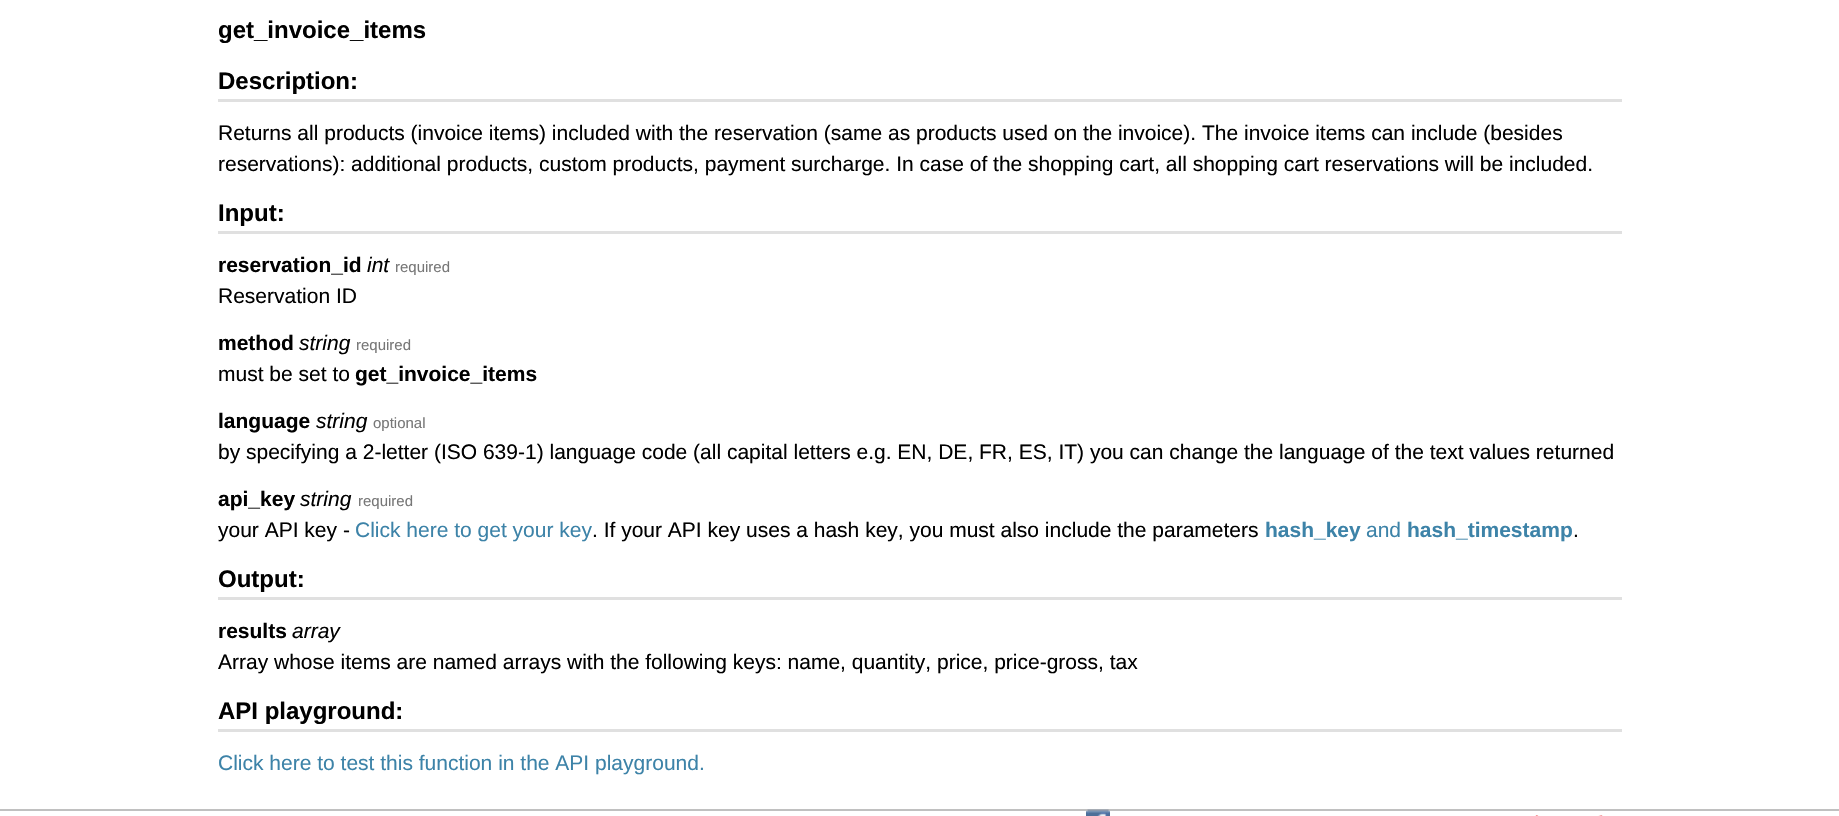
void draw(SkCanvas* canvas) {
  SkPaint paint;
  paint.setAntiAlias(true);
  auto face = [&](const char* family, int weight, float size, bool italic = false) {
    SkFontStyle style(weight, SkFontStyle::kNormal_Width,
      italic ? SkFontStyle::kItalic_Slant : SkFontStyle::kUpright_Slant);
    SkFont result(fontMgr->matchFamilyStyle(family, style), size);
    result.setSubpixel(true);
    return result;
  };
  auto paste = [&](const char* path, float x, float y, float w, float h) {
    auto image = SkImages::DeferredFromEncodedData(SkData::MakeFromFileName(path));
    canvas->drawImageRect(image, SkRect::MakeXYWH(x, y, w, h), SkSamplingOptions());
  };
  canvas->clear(0xffffffff);
  {
    const struct { float x, y, w, h; SkColor color; } items[] = {
      {218, 99, 1404, 3, 0xffe0e0e0},
      {218, 231, 1404, 3, 0xffe0e0e0},
      {218, 597, 1404, 3, 0xffe0e0e0},
      {218, 729, 1404, 3, 0xffe0e0e0},
      {0, 809, 1839, 2, 0xffc0c0c0},
    };
    for (auto [x, y, w, h, color] : items) {
      paint.setColor(color);
      canvas->drawRect(SkRect::MakeXYWH(x, y, w, h), paint);
    }
  }
  paste("img/1.png", 1086, 809, 24, 7);
  paste("img/2.png", 1535, 815, 68, 1);
  auto f0 = face("Liberation Sans", 700, 24);
  paint.setColor(0xff000000);
  canvas->drawString("get_invoice_items", 218, 38, f0, paint);
  canvas->drawString("Description:", 218, 89, f0, paint);
  auto f1 = face("Liberation Sans", 400, 21);
  canvas->drawString("Returns all products (invoice items) included with the reservation (same as products used on the invoice). The invoice items can include (besides", 218, 140, f1, paint);
  canvas->drawString("reservations): additional products, custom products, payment surcharge. In case of the shopping cart, all shopping cart reservations will be included.", 218, 171, f1, paint);
  canvas->drawString("Input:", 218, 221, f0, paint);
  auto f2 = face("Liberation Sans", 700, 21);
  canvas->drawString("reservation_id", 218, 272, f2, paint);
  auto f3 = face("Liberation Sans", 400, 21, true);
  canvas->drawString("int", 367, 272, f3, paint);
  auto f4 = face("Liberation Sans", 400, 15);
  paint.setColor(0xff777777);
  canvas->drawString("required", 395, 272, f4, paint);
  paint.setColor(0xff000000);
  canvas->drawString("Reservation ID", 218, 303, f1, paint);
  canvas->drawString("method", 218, 350, f2, paint);
  canvas->drawString("string", 299, 350, f3, paint);
  paint.setColor(0xff777777);
  canvas->drawString("required", 356, 350, f4, paint);
  paint.setColor(0xff000000);
  canvas->drawString("must be set to", 218, 381, f1, paint);
  canvas->drawString("get_invoice_items", 355, 381, f2, paint);
  canvas->drawString("language", 218, 428, f2, paint);
  canvas->drawString("string", 316, 428, f3, paint);
  paint.setColor(0xff777777);
  canvas->drawString("optional", 373, 428, f4, paint);
  paint.setColor(0xff000000);
  canvas->drawString("by specifying a 2-letter (ISO 639-1) language code (all capital letters e.g. EN, DE, FR, ES, IT) you can change the language of the text values returned", 218, 459, f1, paint);
  canvas->drawString("api_key", 218, 506, f2, paint);
  canvas->drawString("string", 300, 506, f3, paint);
  paint.setColor(0xff777777);
  canvas->drawString("required", 358, 506, f4, paint);
  paint.setColor(0xff000000);
  canvas->drawString("your API key -", 218, 537, f1, paint);
  paint.setColor(0xff3d83a8);
  canvas->drawString("Click here to get your key", 355, 537, f1, paint);
  paint.setColor(0xff000000);
  canvas->drawString(". If your API key uses a hash key, you must also include the parameters", 592, 537, f1, paint);
  paint.setColor(0xff3d83a8);
  canvas->drawString("hash_key", 1265, 537, f2, paint);
  canvas->drawString("and", 1366, 537, f1, paint);
  canvas->drawString("hash_timestamp", 1407, 537, f2, paint);
  paint.setColor(0xff000000);
  canvas->drawString(".", 1573, 537, f1, paint);
  canvas->drawString("Output:", 218, 587, f0, paint);
  canvas->drawString("results", 218, 638, f2, paint);
  canvas->drawString("array", 292, 638, f3, paint);
  canvas->drawString("Array whose items are named arrays with the following keys: name, quantity, price, price-gross, tax", 218, 669, f1, paint);
  canvas->drawString("API playground:", 218, 719, f0, paint);
  paint.setColor(0xff3d83a8);
  canvas->drawString("Click here to test this function in the API playground.", 218, 770, f1, paint);
}
